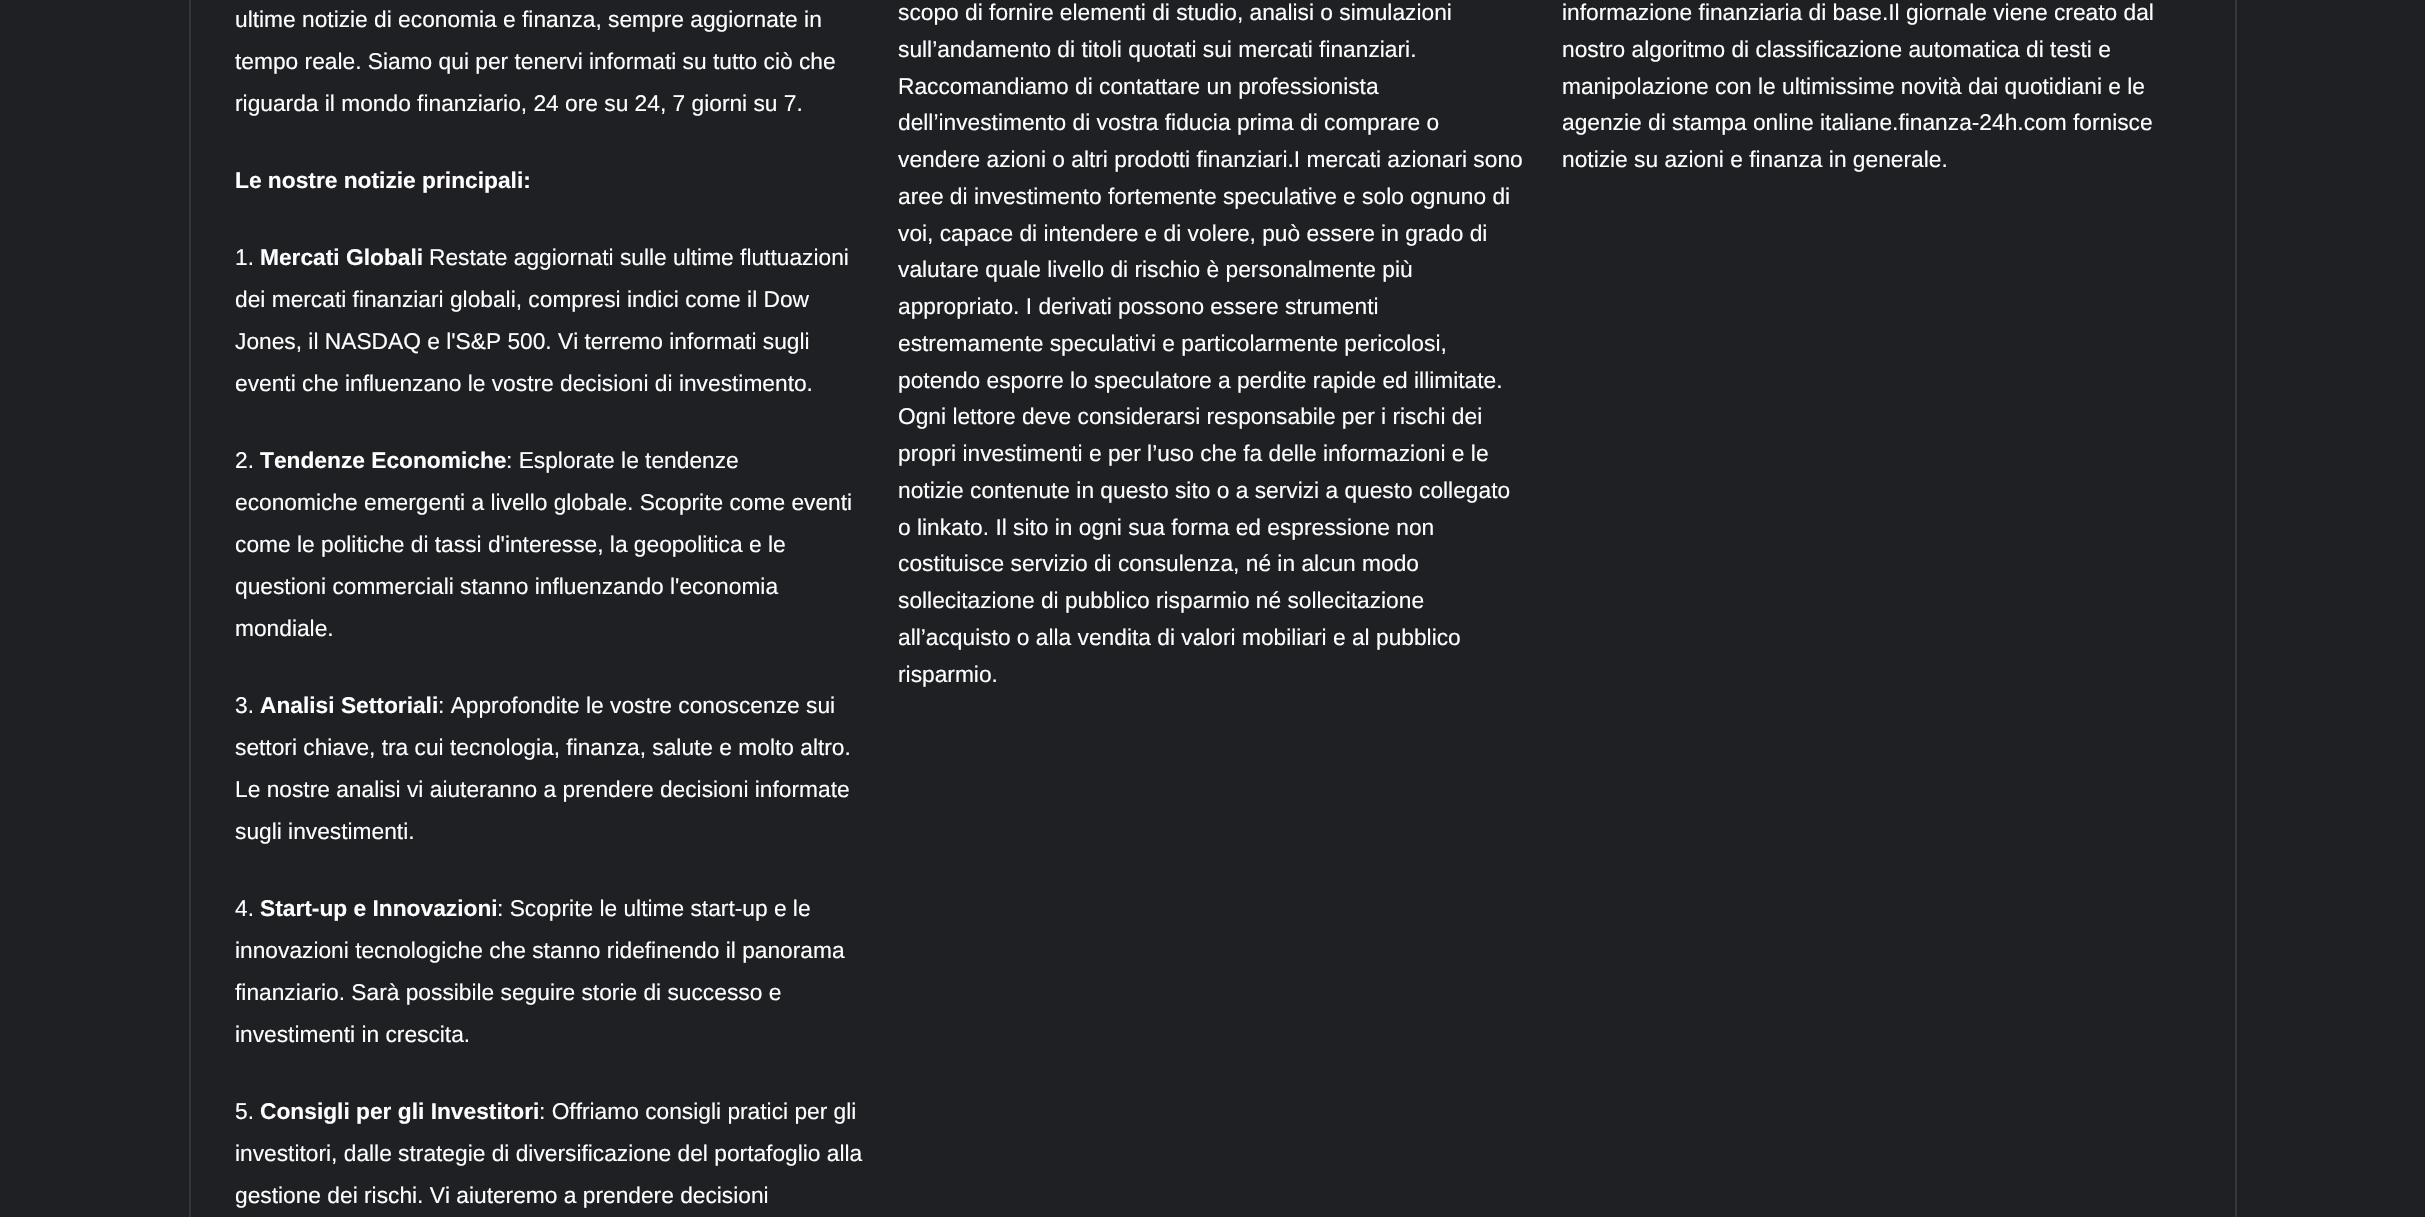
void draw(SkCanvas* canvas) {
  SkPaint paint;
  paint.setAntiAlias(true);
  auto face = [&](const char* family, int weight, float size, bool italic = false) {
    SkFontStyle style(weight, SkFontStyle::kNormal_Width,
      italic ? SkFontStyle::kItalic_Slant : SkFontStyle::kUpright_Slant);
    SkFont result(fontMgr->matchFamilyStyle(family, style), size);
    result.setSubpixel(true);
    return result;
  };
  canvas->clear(0xff1f2024);
  paint.setStroke(true);
  paint.setStrokeWidth(2);
  paint.setColor(0xff35363a);
  canvas->drawRect(SkRect::MakeXYWH(190, -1, 2046, 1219), paint);
  auto f0 = face("Liberation Sans", 400, 22.75f);
  paint.setStroke(false);
  paint.setColor(0xffffffff);
  {
    const struct { const char* s; float x, y; } items[] = {
      {"ultime notizie di economia e finanza, sempre aggiornate in", 235, 27},
      {"tempo reale. Siamo qui per tenervi informati su tutto ciò che", 235, 69},
      {"riguarda il mondo finanziario, 24 ore su 24, 7 giorni su 7.", 235, 111},
    };
    for (auto [s, x, y] : items) {
      canvas->drawString(s, x, y, f0, paint);
    }
  }
  auto f1 = face("Liberation Sans", 700, 22.75f);
  canvas->drawString("Le nostre notizie principali:", 235, 188, f1, paint);
  canvas->drawString("1.", 235, 265, f0, paint);
  canvas->drawString("Mercati Globali", 260, 265, f1, paint);
  {
    const struct { const char* s; float x, y; } items[] = {
      {"Restate aggiornati sulle ultime fluttuazioni", 429, 265},
      {"dei mercati finanziari globali, compresi indici come il Dow", 235, 307},
      {"Jones, il NASDAQ e l'S&P 500. Vi terremo informati sugli", 235, 349},
      {"eventi che influenzano le vostre decisioni di investimento.", 235, 391},
      {"2.", 235, 468},
    };
    for (auto [s, x, y] : items) {
      canvas->drawString(s, x, y, f0, paint);
    }
  }
  canvas->drawString("Tendenze Economiche", 260, 468, f1, paint);
  {
    const struct { const char* s; float x, y; } items[] = {
      {": Esplorate le tendenze", 506, 468},
      {"economiche emergenti a livello globale. Scoprite come eventi", 235, 510},
      {"come le politiche di tassi d'interesse, la geopolitica e le", 235, 552},
      {"questioni commerciali stanno influenzando l'economia", 235, 594},
      {"mondiale.", 235, 636},
      {"3.", 235, 713},
    };
    for (auto [s, x, y] : items) {
      canvas->drawString(s, x, y, f0, paint);
    }
  }
  canvas->drawString("Analisi Settoriali", 260, 713, f1, paint);
  {
    const struct { const char* s; float x, y; } items[] = {
      {": Approfondite le vostre conoscenze sui", 438, 713},
      {"settori chiave, tra cui tecnologia, finanza, salute e molto altro.", 235, 755},
      {"Le nostre analisi vi aiuteranno a prendere decisioni informate", 235, 797},
      {"sugli investimenti.", 235, 839},
      {"4.", 235, 916},
    };
    for (auto [s, x, y] : items) {
      canvas->drawString(s, x, y, f0, paint);
    }
  }
  canvas->drawString("Start-up e Innovazioni", 260, 916, f1, paint);
  {
    const struct { const char* s; float x, y; } items[] = {
      {": Scoprite le ultime start-up e le", 497, 916},
      {"innovazioni tecnologiche che stanno ridefinendo il panorama", 235, 958},
      {"finanziario. Sarà possibile seguire storie di successo e", 235, 1000},
      {"investimenti in crescita.", 235, 1042},
      {"5.", 235, 1119},
    };
    for (auto [s, x, y] : items) {
      canvas->drawString(s, x, y, f0, paint);
    }
  }
  canvas->drawString("Consigli per gli Investitori", 260, 1119, f1, paint);
  {
    const struct { const char* s; float x, y; } items[] = {
      {": Offriamo consigli pratici per gli", 539, 1119},
      {"investitori, dalle strategie di diversificazione del portafoglio alla", 235, 1161},
      {"gestione dei rischi. Vi aiuteremo a prendere decisioni", 235, 1203},
      {"scopo di fornire elementi di studio, analisi o simulazioni", 898, 20},
      {"sull’andamento di titoli quotati sui mercati finanziari.", 898, 57},
      {"Raccomandiamo di contattare un professionista", 898, 94},
      {"dell’investimento di vostra fiducia prima di comprare o", 898, 130},
      {"vendere azioni o altri prodotti finanziari.I mercati azionari sono", 898, 167},
      {"aree di investimento fortemente speculative e solo ognuno di", 898, 204},
      {"voi, capace di intendere e di volere, può essere in grado di", 898, 241},
      {"valutare quale livello di rischio è personalmente più", 898, 277},
      {"appropriato. I derivati possono essere strumenti", 898, 314},
      {"estremamente speculativi e particolarmente pericolosi,", 898, 351},
      {"potendo esporre lo speculatore a perdite rapide ed illimitate.", 898, 388},
      {"Ogni lettore deve considerarsi responsabile per i rischi dei", 898, 424},
      {"propri investimenti e per l’uso che fa delle informazioni e le", 898, 461},
      {"notizie contenute in questo sito o a servizi a questo collegato", 898, 498},
      {"o linkato. Il sito in ogni sua forma ed espressione non", 898, 535},
      {"costituisce servizio di consulenza, né in alcun modo", 898, 571},
      {"sollecitazione di pubblico risparmio né sollecitazione", 898, 608},
      {"all’acquisto o alla vendita di valori mobiliari e al pubblico", 898, 645},
      {"risparmio.", 898, 682},
      {"informazione finanziaria di base.Il giornale viene creato dal", 1562, 20},
      {"nostro algoritmo di classificazione automatica di testi e", 1562, 57},
      {"manipolazione con le ultimissime novità dai quotidiani e le", 1562, 94},
      {"agenzie di stampa online italiane.finanza-24h.com fornisce", 1562, 130},
      {"notizie su azioni e finanza in generale.", 1562, 167},
    };
    for (auto [s, x, y] : items) {
      canvas->drawString(s, x, y, f0, paint);
    }
  }
}
